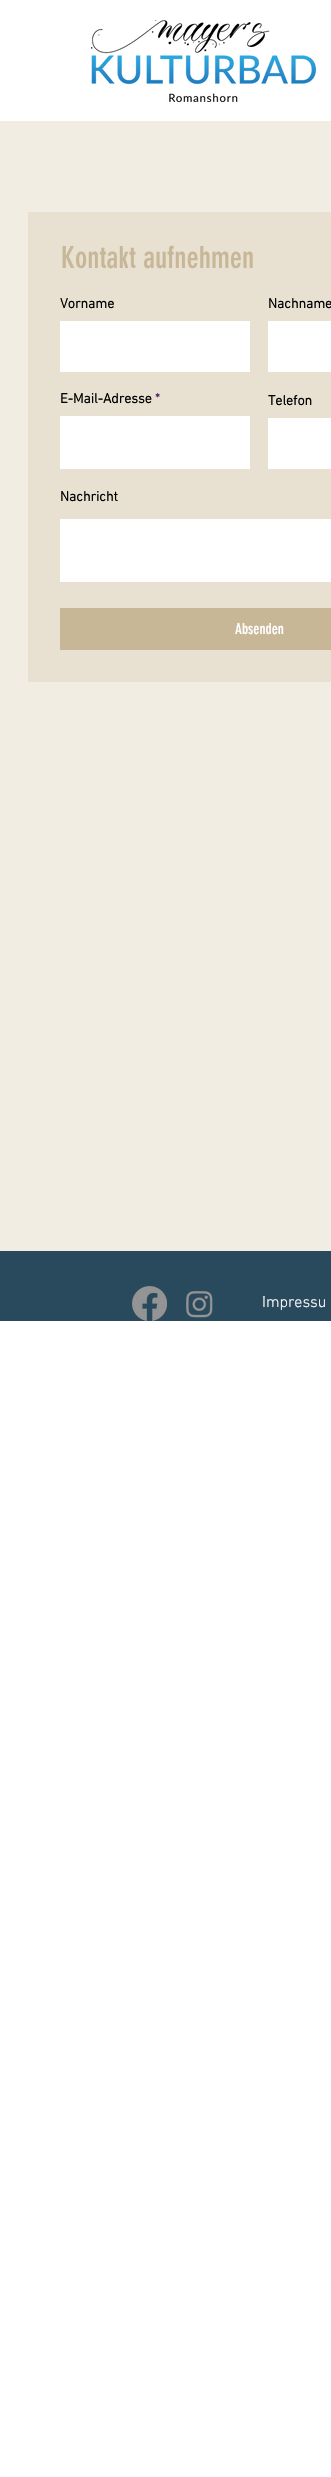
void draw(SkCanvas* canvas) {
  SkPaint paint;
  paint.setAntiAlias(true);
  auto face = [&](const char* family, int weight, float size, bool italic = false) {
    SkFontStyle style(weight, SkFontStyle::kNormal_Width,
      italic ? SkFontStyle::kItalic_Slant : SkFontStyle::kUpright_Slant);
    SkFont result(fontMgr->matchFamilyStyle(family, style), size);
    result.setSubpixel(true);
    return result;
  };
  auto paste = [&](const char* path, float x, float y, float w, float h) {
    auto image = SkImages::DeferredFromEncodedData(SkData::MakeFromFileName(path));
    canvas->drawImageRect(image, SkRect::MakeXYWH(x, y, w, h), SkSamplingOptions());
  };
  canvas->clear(0xffffffff);
  paste("img/1.png", 91, 20, 225, 82);
  {
    const struct { float x, y, w, h; SkColor color; } items[] = {
      {0, 121, 331, 1130, 0xfff1ede3},
      {28, 212, 303, 470, 0xffe8e1d2},
      {60, 321, 190, 51, 0xffffffff},
      {268, 321, 63, 51, 0xffffffff},
      {60, 416, 190, 53, 0xffffffff},
      {268, 418, 63, 51, 0xffffffff},
      {60, 519, 271, 63, 0xffffffff},
      {60, 608, 271, 42, 0xffc7b796},
      {0, 1251, 331, 70, 0xff29495d},
    };
    for (auto [x, y, w, h, color] : items) {
      paint.setColor(color);
      canvas->drawRect(SkRect::MakeXYWH(x, y, w, h), paint);
    }
  }
  paste("img/2.png", 132, 1286, 35, 35);
  paste("img/3.png", 186, 1291, 27, 27);
  auto f0 = face("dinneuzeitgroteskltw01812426", 400, 30);
  paint.setColor(0xffc7b796);
  canvas->drawString("Kontakt aufnehmen", 61, 268, f0, paint);
  auto f1 = face("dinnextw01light", 700, 14);
  paint.setColor(0xff000000);
  {
    const struct { const char* s; float x, y; } items[] = {
      {"Vorname", 60, 308},
      {"Nachname", 268, 308},
      {"E-Mail-Adresse", 60, 403},
    };
    for (auto [s, x, y] : items) {
      canvas->drawString(s, x, y, f1, paint);
    }
  }
  paint.setColor(0xff522662);
  canvas->drawString("*", 155, 403, f1, paint);
  paint.setColor(0xff000000);
  canvas->drawString("Telefon", 268, 405, f1, paint);
  canvas->drawString("Nachricht", 60, 501, f1, paint);
  auto f2 = face("dinneuzeitgroteskltw01812426", 400, 15);
  paint.setColor(0xffffffff);
  canvas->drawString("Absenden", 235, 634, f2, paint);
  auto f3 = face("dinnextw01light", 300, 16);
  canvas->drawString("Impressu", 262, 1307, f3, paint);
}
